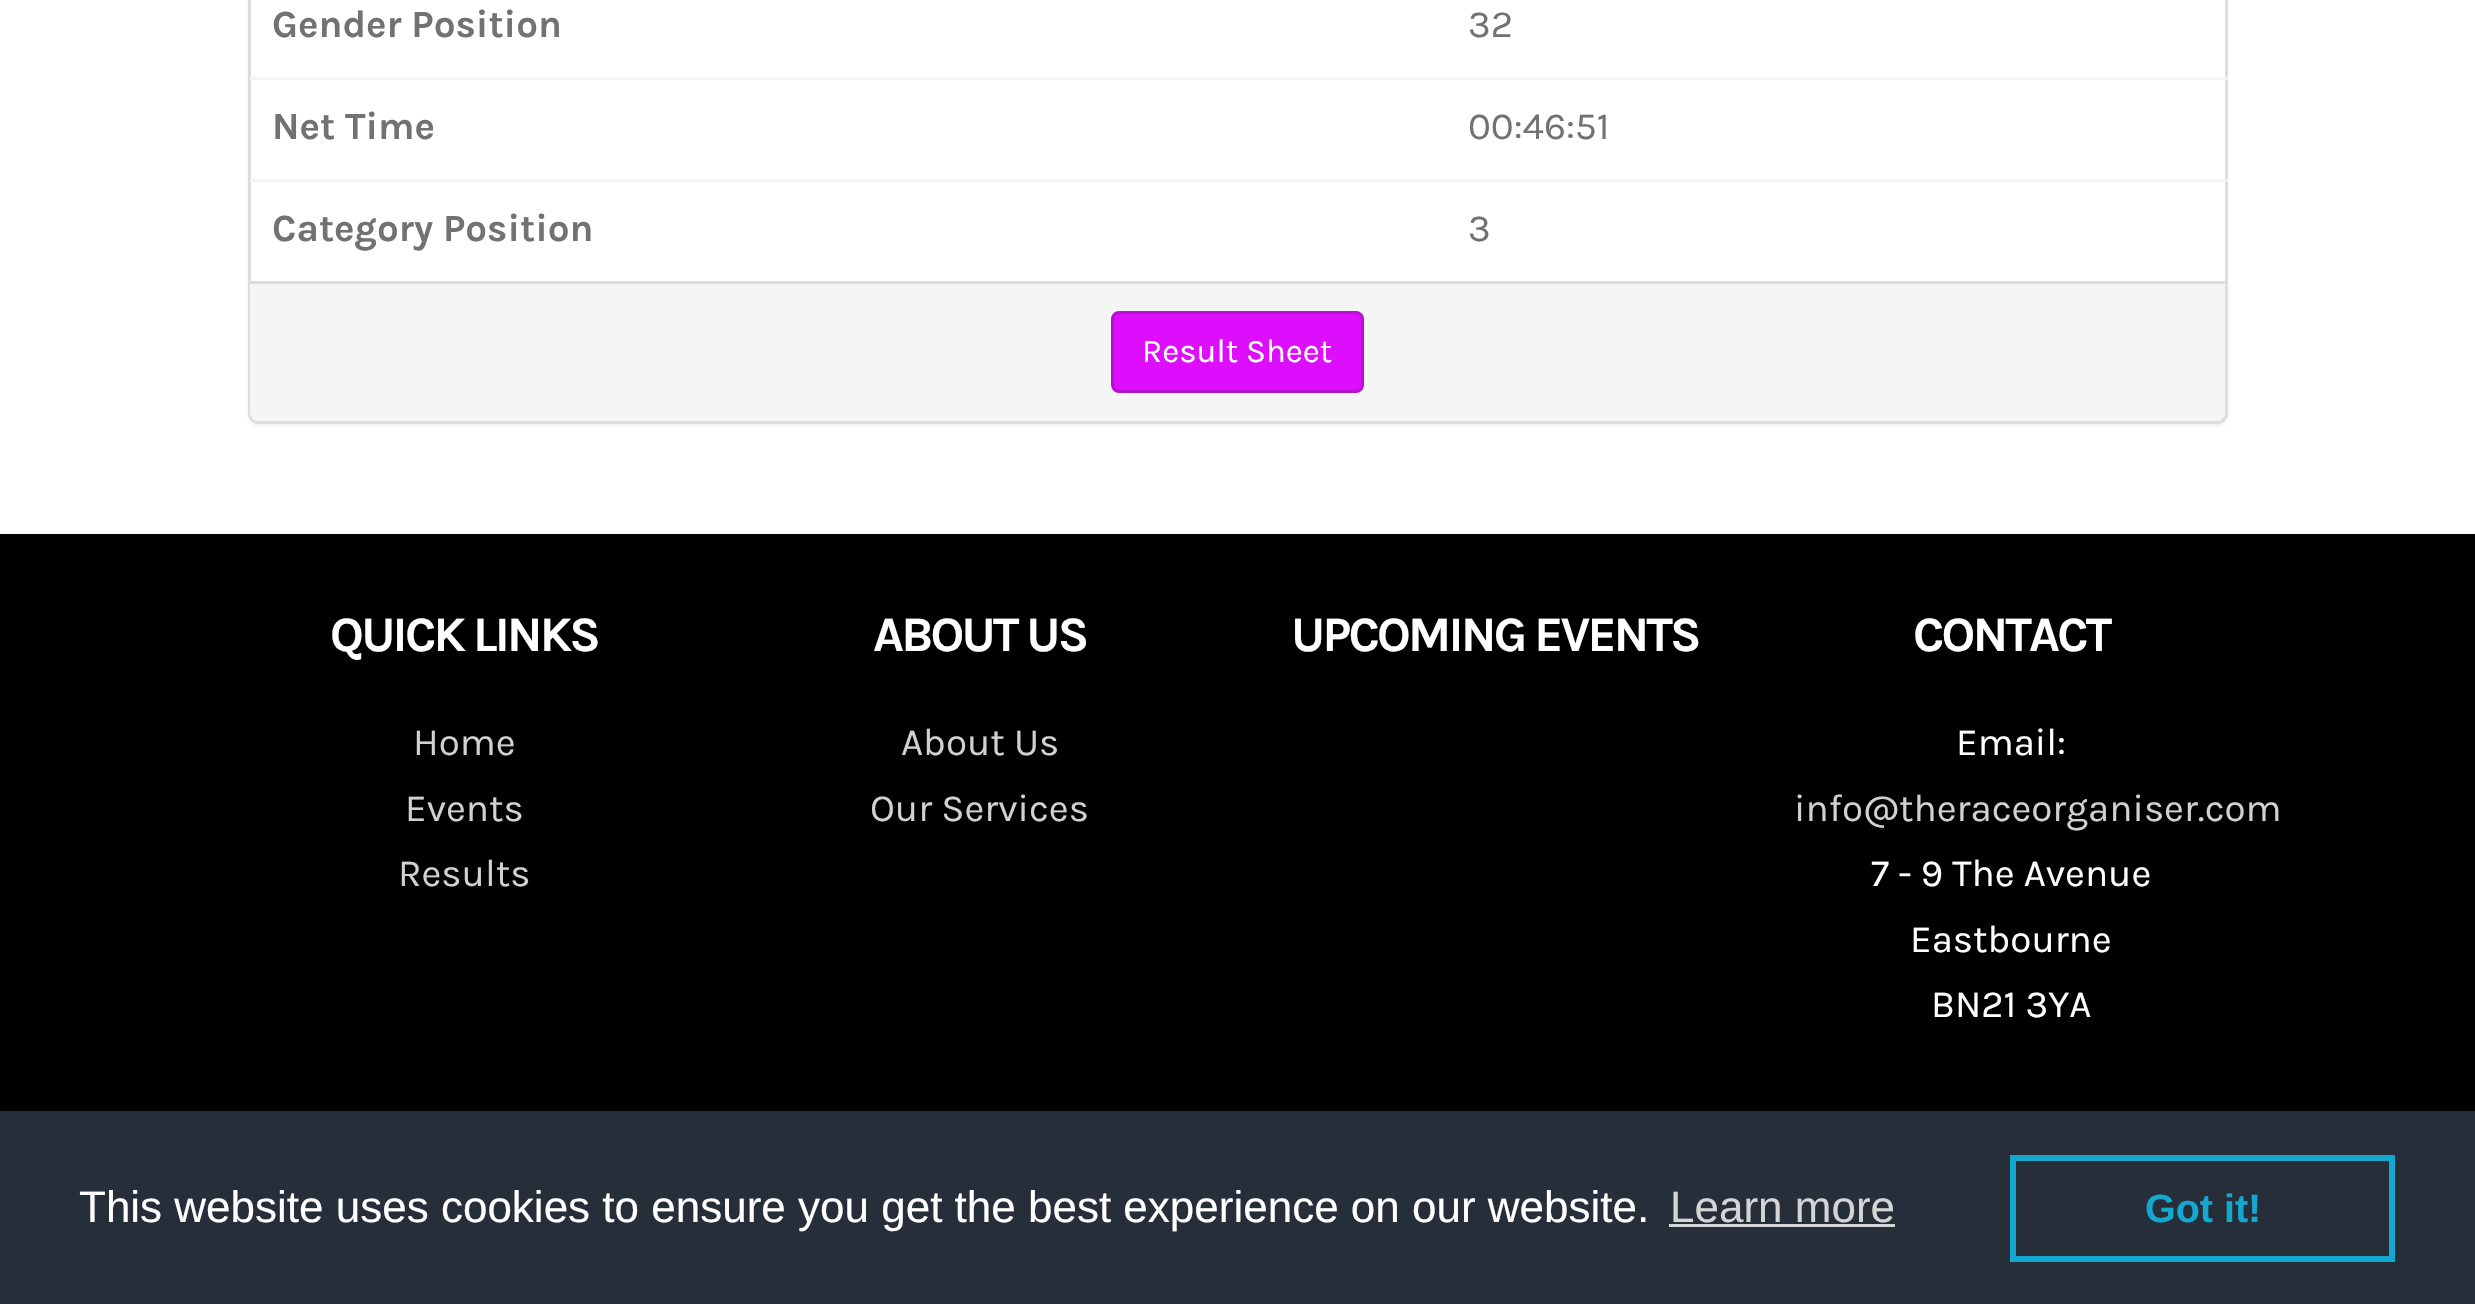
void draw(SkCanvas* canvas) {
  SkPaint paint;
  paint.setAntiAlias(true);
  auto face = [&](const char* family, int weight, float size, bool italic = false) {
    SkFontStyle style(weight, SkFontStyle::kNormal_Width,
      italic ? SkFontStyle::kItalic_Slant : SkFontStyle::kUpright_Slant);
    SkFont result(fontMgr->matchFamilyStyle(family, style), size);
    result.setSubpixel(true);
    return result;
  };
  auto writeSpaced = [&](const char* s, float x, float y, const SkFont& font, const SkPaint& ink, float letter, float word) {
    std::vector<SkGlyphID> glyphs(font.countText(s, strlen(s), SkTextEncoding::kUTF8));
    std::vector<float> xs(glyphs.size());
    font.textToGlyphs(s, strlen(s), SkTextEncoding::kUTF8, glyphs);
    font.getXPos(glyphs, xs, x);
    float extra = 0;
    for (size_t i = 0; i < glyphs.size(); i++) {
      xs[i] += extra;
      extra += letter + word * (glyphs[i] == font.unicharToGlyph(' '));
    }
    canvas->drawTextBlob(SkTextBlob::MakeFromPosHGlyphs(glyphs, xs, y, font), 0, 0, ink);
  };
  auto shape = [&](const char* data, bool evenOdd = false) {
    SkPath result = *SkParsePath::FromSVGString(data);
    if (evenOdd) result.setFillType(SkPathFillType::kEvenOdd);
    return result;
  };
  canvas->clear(0xffffffff);
  paint.setColor(0x0d000000);
  paint.setMaskFilter(SkMaskFilter::MakeBlur(kNormal_SkBlurStyle, 1.5f));
  canvas->drawRoundRect(SkRect::MakeXYWH(248, -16, 1980, 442), 11, 11, paint);
  paint.setMaskFilter(nullptr);
  paint.setColor(0xffffffff);
  canvas->drawRoundRect(SkRect::MakeXYWH(249.5f, -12.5f, 1977, 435), 9.5f, 9.5f, paint);
  paint.setStroke(true);
  paint.setStrokeWidth(3);
  paint.setColor(0xffdddddd);
  canvas->drawRoundRect(SkRect::MakeXYWH(249.5f, -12.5f, 1977, 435), 9.5f, 9.5f, paint);
  paint.setStroke(false);
  paint.setColor(0xfff4f4f4);
  canvas->drawRect(SkRect::MakeXYWH(250, 77, 1978, 3), paint);
  canvas->drawRect(SkRect::MakeXYWH(250, 179, 1978, 3), paint);
  paint.setColor(0xfff5f5f5);
  canvas->drawPath(shape("M250 281H2225V413C2225 417.5 2221.5 421 2217 421H258C253.5 421 250 417.5 250 413Z"), paint);
  paint.setColor(0xffdddddd);
  canvas->drawRect(SkRect::MakeXYWH(250, 281, 1975, 3), paint);
  paint.setColor(0xffdc0efb);
  canvas->drawRoundRect(SkRect::MakeXYWH(1112.5f, 312.5f, 250, 79), 6.5f, 6.5f, paint);
  paint.setStroke(true);
  paint.setColor(0xffb511ce);
  canvas->drawRoundRect(SkRect::MakeXYWH(1112.5f, 312.5f, 250, 79), 6.5f, 6.5f, paint);
  paint.setStroke(false);
  {
    const struct { float x, y, w, h; SkColor color; } items[] = {
      {0, 534, 2475, 577, 0xff000000},
      {0, 1111, 2475, 193, 0xff252e39},
      {1669, 1224, 226, 3, 0xffd3d5d7},
    };
    for (auto [x, y, w, h, color] : items) {
      paint.setColor(color);
      canvas->drawRect(SkRect::MakeXYWH(x, y, w, h), paint);
    }
  }
  paint.setStroke(true);
  paint.setStrokeWidth(6);
  paint.setColor(0xff14a7d0);
  canvas->drawRect(SkRect::MakeXYWH(2013, 1158, 379, 101), paint);
  auto f0 = face("Karla", 700, 38.5f);
  paint.setStroke(false);
  paint.setColor(0xff727272);
  canvas->drawString("Gender Position", 272, 37, f0, paint);
  auto f1 = face("Karla", 400, 38.5f);
  canvas->drawString("32", 1468, 37, f1, paint);
  canvas->drawString("Net Time", 272, 139, f0, paint);
  canvas->drawString("00:46:51", 1468, 139, f1, paint);
  canvas->drawString("Category Position", 272, 241, f0, paint);
  canvas->drawString("3", 1468, 241, f1, paint);
  auto f2 = face("Karla", 400, 33);
  paint.setColor(0xffffffff);
  canvas->drawString("Result Sheet", 1142, 362, f2, paint);
  auto f3 = face("Karla", 700, 49.5f);
  writeSpaced("QUICK LINKS", 330, 651, f3, paint, -2.75f, 0);
  paint.setColor(0xffd2d1d1);
  {
    const struct { const char* s; float x, y; } items[] = {
      {"Home", 413, 755},
      {"Events", 405, 821},
      {"Results", 398, 886},
    };
    for (auto [s, x, y] : items) {
      canvas->drawString(s, x, y, f1, paint);
    }
  }
  paint.setColor(0xffffffff);
  writeSpaced("ABOUT US", 873, 651, f3, paint, -2.75f, 0);
  paint.setColor(0xffd2d1d1);
  canvas->drawString("About Us", 901, 755, f1, paint);
  canvas->drawString("Our Services", 870, 821, f1, paint);
  paint.setColor(0xffffffff);
  writeSpaced("UPCOMING EVENTS", 1291, 651, f3, paint, -2.75f, 0);
  writeSpaced("CONTACT", 1913, 651, f3, paint, -2.75f, 0);
  canvas->drawString("Email:", 1956, 755, f1, paint);
  paint.setColor(0xffd2d1d1);
  canvas->drawString("info@theraceorganiser.com", 1794, 821, f1, paint);
  paint.setColor(0xffffffff);
  {
    const struct { const char* s; float x, y; } items[] = {
      {"7 - 9 The Avenue", 1871, 886},
      {"Eastbourne", 1910, 952},
      {"BN21 3YA", 1931, 1017},
    };
    for (auto [s, x, y] : items) {
      canvas->drawString(s, x, y, f1, paint);
    }
  }
  auto f4 = face("Liberation Sans", 400, 44);
  canvas->drawString("This website uses cookies to ensure you get the best experience on our website.", 79, 1222, f4, paint);
  paint.setColor(0xffd3d5d7);
  canvas->drawString("Learn more", 1670, 1222, f4, paint);
  auto f5 = face("Liberation Sans", 700, 39.5f);
  paint.setColor(0xff14a7d0);
  canvas->drawString("Got it!", 2145, 1222, f5, paint);
}
